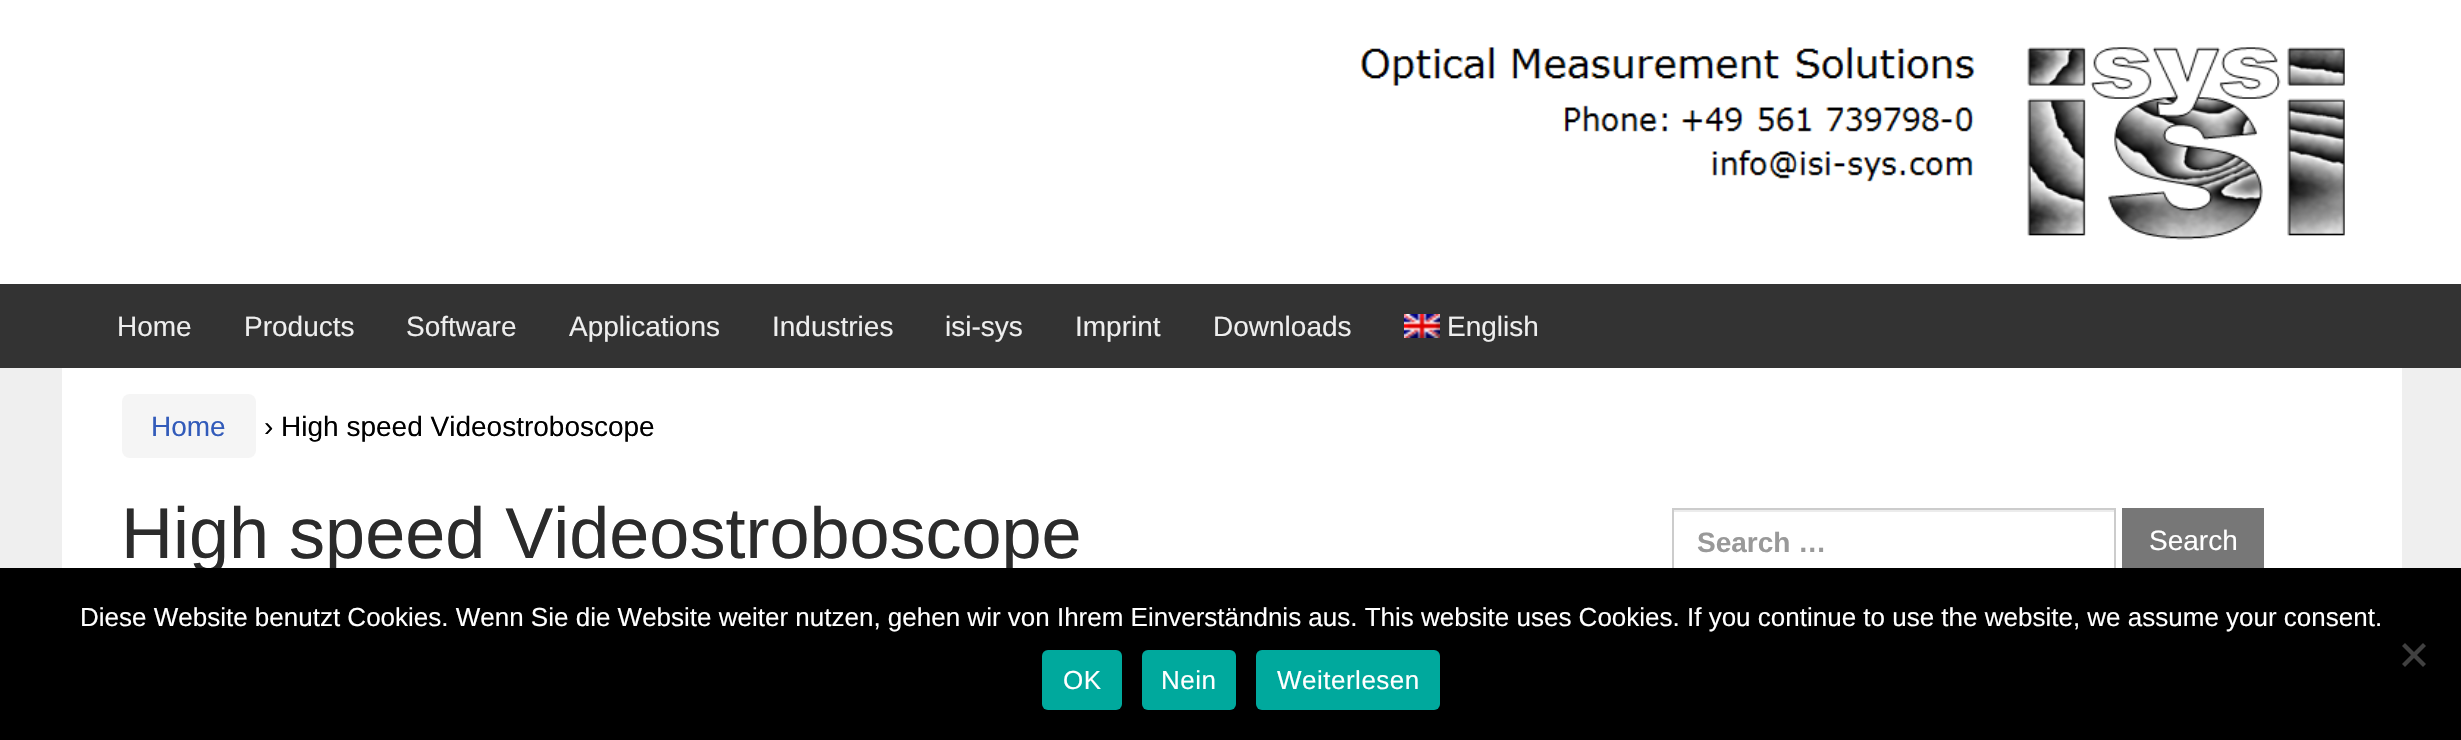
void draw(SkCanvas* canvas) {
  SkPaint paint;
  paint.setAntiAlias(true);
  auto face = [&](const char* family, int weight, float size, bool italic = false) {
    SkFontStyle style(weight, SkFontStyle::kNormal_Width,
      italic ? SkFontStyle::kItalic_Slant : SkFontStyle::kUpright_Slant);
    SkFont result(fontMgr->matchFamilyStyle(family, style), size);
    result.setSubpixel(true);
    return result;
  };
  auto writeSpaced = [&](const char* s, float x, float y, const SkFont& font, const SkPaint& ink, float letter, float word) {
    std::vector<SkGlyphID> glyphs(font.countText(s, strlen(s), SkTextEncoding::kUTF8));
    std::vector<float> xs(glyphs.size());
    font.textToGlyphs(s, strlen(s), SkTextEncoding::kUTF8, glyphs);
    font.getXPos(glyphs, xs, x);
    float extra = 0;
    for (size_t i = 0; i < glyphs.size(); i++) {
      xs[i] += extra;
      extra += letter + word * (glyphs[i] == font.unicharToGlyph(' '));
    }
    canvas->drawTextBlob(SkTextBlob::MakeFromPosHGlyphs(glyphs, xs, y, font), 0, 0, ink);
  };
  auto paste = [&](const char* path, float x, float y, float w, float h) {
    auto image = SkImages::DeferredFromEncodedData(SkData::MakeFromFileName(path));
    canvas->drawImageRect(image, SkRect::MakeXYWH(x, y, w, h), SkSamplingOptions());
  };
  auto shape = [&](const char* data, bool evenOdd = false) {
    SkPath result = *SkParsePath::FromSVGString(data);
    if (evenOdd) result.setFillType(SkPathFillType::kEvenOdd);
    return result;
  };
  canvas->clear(0xffefefef);
  paint.setColor(0xffffffff);
  canvas->drawRect(SkRect::MakeXYWH(0, 0, 2461, 284), paint);
  paste("img/1.png", 1361, 47, 984, 193);
  paint.setColor(0xff333333);
  canvas->drawRect(SkRect::MakeXYWH(0, 284, 2461, 84), paint);
  paste("img/2.png", 1404, 314, 36, 24);
  paint.setColor(0xffffffff);
  canvas->drawRect(SkRect::MakeXYWH(62, 368, 2340, 200), paint);
  paint.setColor(0xfff5f5f5);
  canvas->drawRoundRect(SkRect::MakeXYWH(122, 394, 134, 64), 8, 8, paint);
  paint.setColor(0xffececec);
  canvas->drawRect(SkRect::MakeXYWH(1674, 510, 440, 2), paint);
  paint.setStroke(true);
  paint.setStrokeWidth(2);
  paint.setColor(0xffcccccc);
  canvas->drawRect(SkRect::MakeXYWH(1673, 509, 442, 66), paint);
  paint.setStroke(false);
  paint.setColor(0xff777777);
  canvas->drawRect(SkRect::MakeXYWH(2122, 508, 142, 60), paint);
  auto f0 = face("Liberation Sans", 400, 28);
  paint.setColor(0xffeeeeee);
  {
    const struct { const char* s; float x, y; } items[] = {
      {"Home", 117, 336},
      {"Products", 244, 336},
      {"Software", 406, 336},
      {"Applications", 569, 336},
      {"Industries", 772, 336},
      {"isi-sys", 945, 336},
      {"Imprint", 1075, 336},
      {"Downloads", 1213, 336},
      {"English", 1447, 336},
    };
    for (auto [s, x, y] : items) {
      canvas->drawString(s, x, y, f0, paint);
    }
  }
  paint.setColor(0xff325bba);
  canvas->drawString("Home", 151, 436, f0, paint);
  paint.setColor(0xff000000);
  canvas->drawString("› High speed Videostroboscope", 264, 436, f0, paint);
  auto f1 = face("Liberation Sans", 400, 72);
  paint.setColor(0xff2b2b2b);
  canvas->drawString("High speed Videostroboscope", 121, 558, f1, paint);
  auto f2 = face("Liberation Sans", 700, 28);
  paint.setColor(0xff999999);
  canvas->drawString("Search …", 1697, 552, f2, paint);
  paint.setColor(0xffffffff);
  canvas->drawString("Search", 2149, 550, f0, paint);
  paint.setColor(0xff000000);
  canvas->drawRect(SkRect::MakeXYWH(0, 568, 2461, 172), paint);
  auto f3 = face("Liberation Sans", 400, 26);
  paint.setColor(0xffffffff);
  canvas->drawString("Diese Website benutzt Cookies. Wenn Sie die Website weiter nutzen, gehen wir von Ihrem Einverständnis aus. This website uses Cookies. If you continue to use the website, we assume your consent.", 80, 626, f3, paint);
  paint.setColor(0xff404040);
  canvas->drawPath(shape("M2423 643L2426 646L2405 667L2402 664Z"), paint);
  canvas->drawPath(shape("M2402 646L2405 643L2426 664L2423 667Z"), paint);
  paint.setColor(0xff00a99d);
  canvas->drawRoundRect(SkRect::MakeXYWH(1042, 650, 80, 60), 6, 6, paint);
  paint.setColor(0xffffffff);
  writeSpaced("OK", 1063, 689, f3, paint, 0.5f, 0);
  paint.setColor(0xff00a99d);
  canvas->drawRoundRect(SkRect::MakeXYWH(1142, 650, 94, 60), 6, 6, paint);
  paint.setColor(0xffffffff);
  writeSpaced("Nein", 1161, 689, f3, paint, 0.5f, 0);
  paint.setColor(0xff00a99d);
  canvas->drawRoundRect(SkRect::MakeXYWH(1256, 650, 184, 60), 6, 6, paint);
  paint.setColor(0xffffffff);
  writeSpaced("Weiterlesen", 1277, 689, f3, paint, 0.5f, 0);
}
